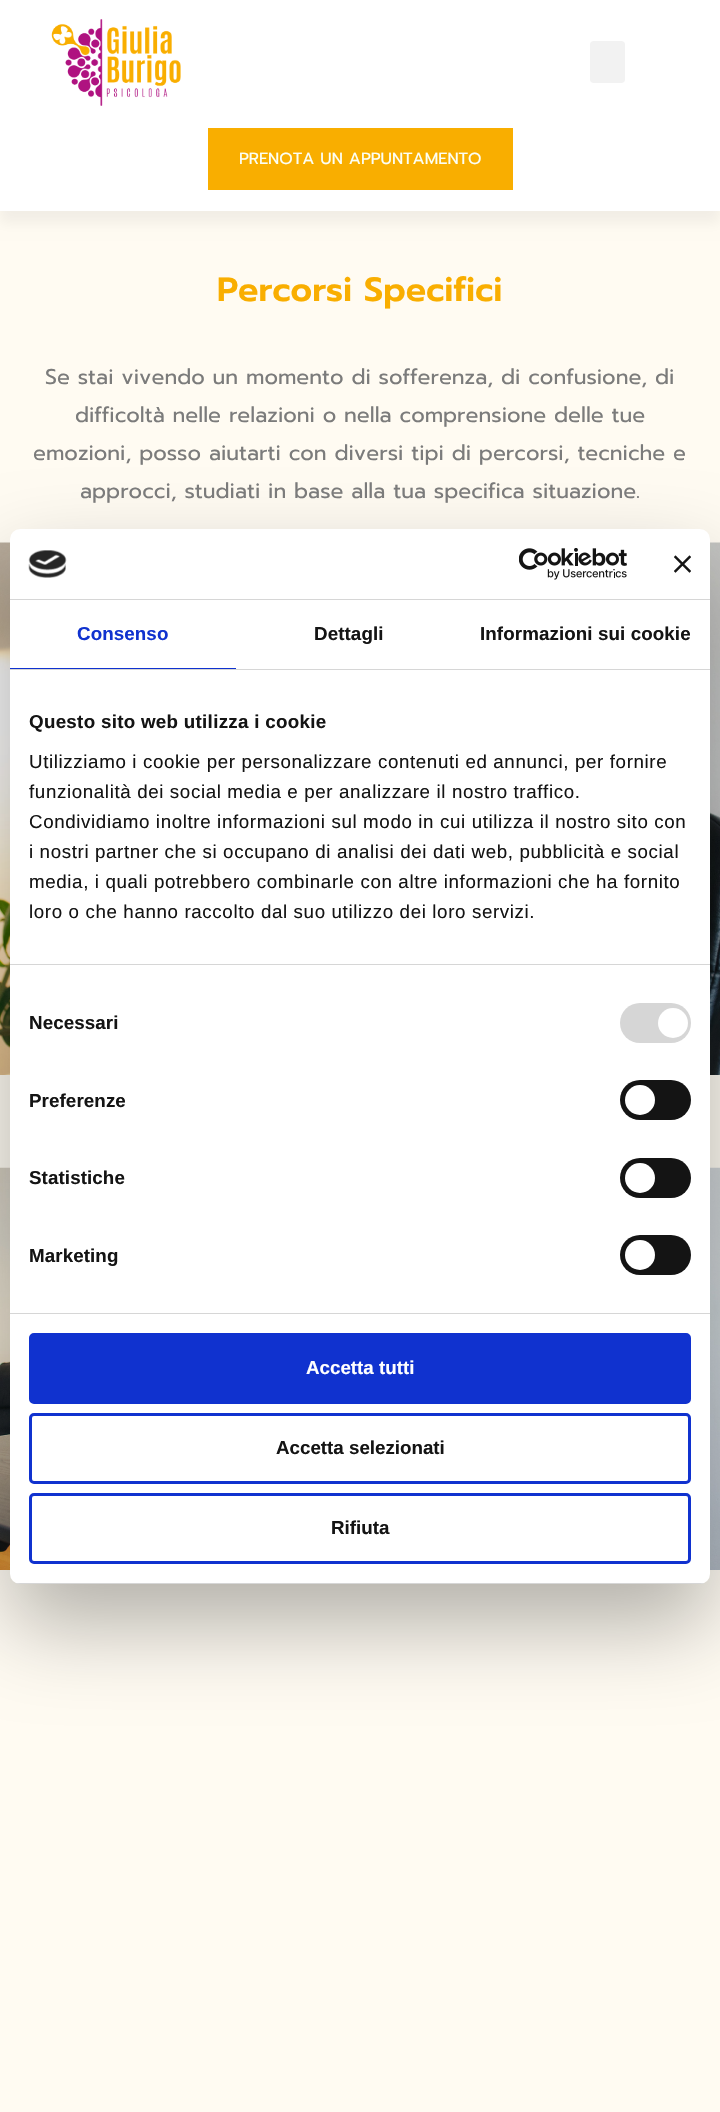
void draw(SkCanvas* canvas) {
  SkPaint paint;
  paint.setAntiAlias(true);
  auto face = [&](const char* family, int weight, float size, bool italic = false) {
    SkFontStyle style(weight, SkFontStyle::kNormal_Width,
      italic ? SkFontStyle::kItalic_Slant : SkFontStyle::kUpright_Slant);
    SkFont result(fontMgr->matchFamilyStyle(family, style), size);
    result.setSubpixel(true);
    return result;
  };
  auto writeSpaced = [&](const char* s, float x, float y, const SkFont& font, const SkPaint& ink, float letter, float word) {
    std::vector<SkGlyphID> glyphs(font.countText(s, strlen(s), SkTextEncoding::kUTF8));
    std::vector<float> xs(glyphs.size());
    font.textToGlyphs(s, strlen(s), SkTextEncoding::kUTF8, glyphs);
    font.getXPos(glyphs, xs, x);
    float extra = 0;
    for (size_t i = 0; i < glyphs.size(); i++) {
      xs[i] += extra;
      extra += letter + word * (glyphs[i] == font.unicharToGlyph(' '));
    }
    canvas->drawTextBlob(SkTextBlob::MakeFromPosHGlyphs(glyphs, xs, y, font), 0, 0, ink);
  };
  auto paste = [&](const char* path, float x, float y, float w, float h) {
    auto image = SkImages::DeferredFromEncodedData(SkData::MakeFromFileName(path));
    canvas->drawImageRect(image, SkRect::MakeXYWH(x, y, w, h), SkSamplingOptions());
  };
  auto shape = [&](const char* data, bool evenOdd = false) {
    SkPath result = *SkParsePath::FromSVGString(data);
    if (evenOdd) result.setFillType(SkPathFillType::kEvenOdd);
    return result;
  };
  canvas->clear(0xfffffbf2);
  paint.setColor(0x0d000000);
  paint.setMaskFilter(SkMaskFilter::MakeBlur(kNormal_SkBlurStyle, 6));
  canvas->drawRect(SkRect::MakeXYWH(0, 11, 720, 212), paint);
  paint.setMaskFilter(nullptr);
  paint.setColor(0xffffffff);
  canvas->drawRect(SkRect::MakeXYWH(0, 0, 720, 211), paint);
  paste("img/1.png", 51, 19, 130, 87);
  paint.setColor(0xfff2f2f2);
  canvas->drawRoundRect(SkRect::MakeXYWH(590, 41, 35, 42), 4, 4, paint);
  paint.setColor(0xfff9ae00);
  canvas->drawRect(SkRect::MakeXYWH(208, 128, 305, 62), paint);
  paste("img/2.png", 0, 542, 720, 533);
  paste("img/3.png", 0, 1167, 720, 403);
  paint.setColor(0x4d000000);
  paint.setMaskFilter(SkMaskFilter::MakeBlur(kNormal_SkBlurStyle, 42.5f));
  canvas->drawRoundRect(SkRect::MakeXYWH(10, 569, 700, 1055), 10, 10, paint);
  paint.setMaskFilter(nullptr);
  paint.setColor(0xffffffff);
  canvas->drawRoundRect(SkRect::MakeXYWH(10, 529, 700, 1055), 10, 10, paint);
  paint.setColor(0xffd6d6d6);
  canvas->drawRect(SkRect::MakeXYWH(10, 599, 700, 1), paint);
  paste("img/4.png", 28, 550, 39, 28);
  paste("img/5.png", 519, 548, 108, 32);
  paste("img/6.png", 674, 555, 17, 18);
  {
    const struct { float x, y, w, h; SkColor color; } items[] = {
      {10, 669, 700, 1, 0xffd6d6d6},
      {10, 668, 226, 1, 0xff1032cf},
      {10, 964, 700, 1, 0xffd6d6d6},
      {10, 1313, 700, 1, 0xffd6d6d6},
    };
    for (auto [x, y, w, h, color] : items) {
      paint.setColor(color);
      canvas->drawRect(SkRect::MakeXYWH(x, y, w, h), paint);
    }
  }
  canvas->drawRoundRect(SkRect::MakeXYWH(620, 1003, 71, 40), 20, 20, paint);
  paint.setColor(0xffffffff);
  canvas->drawCircle(673, 1023, 15, paint);
  paint.setColor(0xff141414);
  canvas->drawRoundRect(SkRect::MakeXYWH(620, 1080, 71, 40), 20, 20, paint);
  paint.setColor(0xffffffff);
  canvas->drawCircle(640, 1100, 15, paint);
  paint.setColor(0xff141414);
  canvas->drawRoundRect(SkRect::MakeXYWH(620, 1158, 71, 40), 20, 20, paint);
  paint.setColor(0xffffffff);
  canvas->drawCircle(640, 1178, 15, paint);
  paint.setColor(0xff141414);
  canvas->drawRoundRect(SkRect::MakeXYWH(620, 1235, 71, 40), 20, 20, paint);
  paint.setColor(0xffffffff);
  canvas->drawCircle(640, 1255, 15, paint);
  canvas->save();
  canvas->clipPath(shape("M20 529H700C705.5 529 710 533.5 710 539V1574C710 1579.5 705.5 1584 700 1584H20C14.5 1584 10 1579.5 10 1574V539C10 533.5 14.5 529 20 529Z"), true);
  paint.setColor(0xffd6d6d6);
  canvas->drawRect(SkRect::MakeXYWH(10, 1583, 700, 1), paint);
  canvas->restore();
  paint.setColor(0xff1032cf);
  canvas->drawRoundRect(SkRect::MakeXYWH(30.5f, 1334.5f, 659, 68), 3.5f, 3.5f, paint);
  paint.setStroke(true);
  paint.setStrokeWidth(3);
  canvas->drawRoundRect(SkRect::MakeXYWH(30.5f, 1334.5f, 659, 68), 3.5f, 3.5f, paint);
  canvas->drawRoundRect(SkRect::MakeXYWH(30.5f, 1414.5f, 659, 68), 3.5f, 3.5f, paint);
  canvas->drawRoundRect(SkRect::MakeXYWH(30.5f, 1494.5f, 659, 68), 3.5f, 3.5f, paint);
  auto f0 = face("Prompt", 400, 16.25f);
  paint.setStroke(false);
  paint.setColor(0xfffcfff5);
  canvas->drawString("PRENOTA UN APPUNTAMENTO", 239, 164, f0, paint);
  auto f1 = face("Prompt", 600, 33.75f);
  paint.setColor(0xfff9ae00);
  canvas->drawString("Percorsi Specifici", 217, 301, f1, paint);
  auto f2 = face("Prompt", 400, 21.25f);
  paint.setColor(0xff7b7b7b);
  {
    const struct { const char* s; float x, y; } items[] = {
      {"Se stai vivendo un momento di sofferenza, di confusione, di", 45, 384},
      {"difficoltà nelle relazioni o nella comprensione delle tue", 75, 422},
      {"emozioni, posso aiutarti con diversi tipi di percorsi, tecniche e", 33, 460},
      {"approcci, studiati in base alla tua specifica situazione.", 80, 498},
    };
    for (auto [s, x, y] : items) {
      canvas->drawString(s, x, y, f2, paint);
    }
  }
  auto f3 = face("Liberation Sans", 700, 18.75f);
  paint.setColor(0xff1032cf);
  writeSpaced("Consenso", 77, 640, f3, paint, 0.1f, 0);
  paint.setColor(0xff141414);
  writeSpaced("Dettagli", 314, 640, f3, paint, 0.1f, 0);
  writeSpaced("Informazioni sui cookie", 480, 640, f3, paint, 0.1f, 0);
  writeSpaced("Questo sito web utilizza i cookie", 29, 728, f3, paint, 0.3f, 0);
  auto f4 = face("Liberation Sans", 400, 18.75f);
  {
    const struct { const char* s; float x, y; } items[] = {
      {"Utilizziamo i cookie per personalizzare contenuti ed annunci, per fornire", 29, 768},
      {"funzionalità dei social media e per analizzare il nostro traffico.", 29, 798},
      {"Condividiamo inoltre informazioni sul modo in cui utilizza il nostro sito con", 29, 828},
      {"i nostri partner che si occupano di analisi dei dati web, pubblicità e social", 29, 858},
      {"media, i quali potrebbero combinarle con altre informazioni che ha fornito", 29, 888},
      {"loro o che hanno raccolto dal suo utilizzo dei loro servizi.", 29, 918},
    };
    for (auto [s, x, y] : items) {
      writeSpaced(s, x, y, f4, paint, 0.62f, 0);
    }
  }
  {
    const struct { const char* s; float x, y; } items[] = {
      {"Necessari", 29, 1029},
      {"Preferenze", 29, 1107},
      {"Statistiche", 29, 1184},
      {"Marketing", 29, 1262},
    };
    for (auto [s, x, y] : items) {
      writeSpaced(s, x, y, f3, paint, 0.1f, 0);
    }
  }
  paint.setColor(0xffffffff);
  canvas->drawString("Accetta tutti", 306, 1374, f3, paint);
  paint.setColor(0xff141414);
  canvas->drawString("Accetta selezionati", 276, 1454, f3, paint);
  canvas->drawString("Rifiuta", 331, 1534, f3, paint);
}
